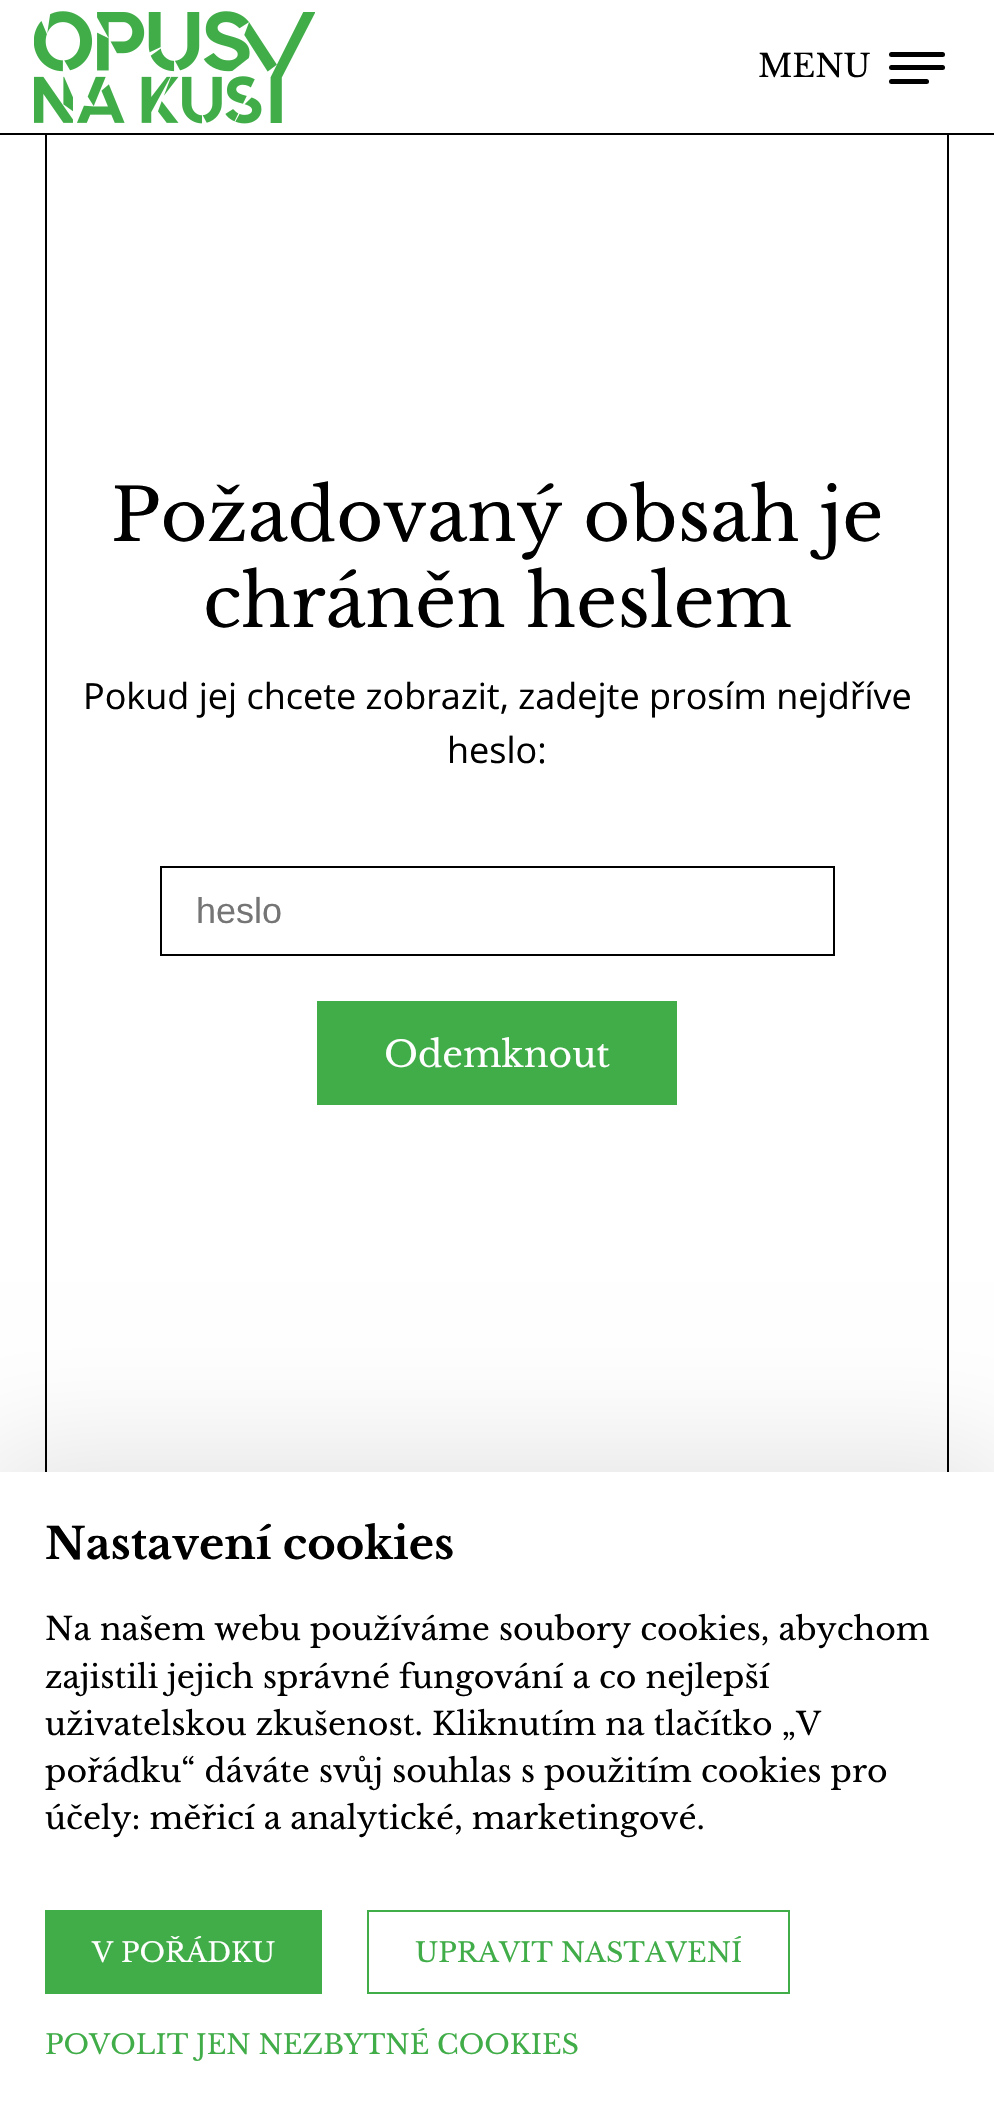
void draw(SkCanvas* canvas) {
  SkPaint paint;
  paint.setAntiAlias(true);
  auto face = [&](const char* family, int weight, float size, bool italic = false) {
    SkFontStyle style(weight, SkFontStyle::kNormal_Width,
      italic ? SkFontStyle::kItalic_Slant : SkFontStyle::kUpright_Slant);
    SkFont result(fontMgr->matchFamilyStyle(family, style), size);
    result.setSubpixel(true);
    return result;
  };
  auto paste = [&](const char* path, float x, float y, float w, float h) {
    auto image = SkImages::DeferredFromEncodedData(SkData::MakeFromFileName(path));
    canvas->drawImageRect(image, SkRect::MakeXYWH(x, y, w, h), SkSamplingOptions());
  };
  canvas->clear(0xffffffff);
  paint.setColor(0xff000000);
  canvas->drawRect(SkRect::MakeXYWH(0, 133, 994, 2), paint);
  paste("img/1.png", 34, 11, 281, 113);
  canvas->drawRoundRect(SkRect::MakeXYWH(889, 65, 56, 5), 2.5f, 2.5f, paint);
  canvas->drawRoundRect(SkRect::MakeXYWH(889, 52, 56, 5), 2.5f, 2.5f, paint);
  canvas->drawRoundRect(SkRect::MakeXYWH(889, 79, 40, 5), 2.5f, 2.5f, paint);
  canvas->drawRect(SkRect::MakeXYWH(947, 135, 2, 1337), paint);
  canvas->drawRect(SkRect::MakeXYWH(45, 135, 2, 1337), paint);
  paint.setStroke(true);
  paint.setStrokeWidth(2);
  canvas->drawRect(SkRect::MakeXYWH(161, 867, 673, 88), paint);
  paint.setStroke(false);
  paint.setColor(0xff41ad49);
  canvas->drawRect(SkRect::MakeXYWH(317, 1001, 360, 104), paint);
  paint.setColor(0x1a000000);
  paint.setMaskFilter(SkMaskFilter::MakeBlur(kNormal_SkBlurStyle, 56));
  canvas->drawRect(SkRect::MakeXYWH(-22, 1449, 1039, 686), paint);
  paint.setMaskFilter(nullptr);
  paint.setColor(0xffffffff);
  canvas->drawRect(SkRect::MakeXYWH(0, 1472, 994, 639), paint);
  paint.setColor(0xff41ad49);
  canvas->drawRect(SkRect::MakeXYWH(45, 1910, 277, 84), paint);
  paint.setStroke(true);
  canvas->drawRect(SkRect::MakeXYWH(368, 1911, 421, 82), paint);
  auto f0 = face("Libre Baskerville", 400, 31.5f);
  paint.setStroke(false);
  paint.setColor(0xff000000);
  canvas->drawString("MENU", 758, 77, f0, paint);
  auto f1 = face("Libre Baskerville", 400, 72);
  canvas->drawString("Požadovaný obsah je", 111, 541, f1, paint);
  canvas->drawString("chráněn heslem", 203, 627, f1, paint);
  auto f2 = face("Open Sans", 400, 36);
  canvas->drawString("Pokud jej chcete zobrazit, zadejte prosím nejdříve", 83, 709, f2, paint);
  canvas->drawString("heslo:", 447, 763, f2, paint);
  auto f3 = face("Liberation Sans", 400, 36);
  paint.setColor(0xff757575);
  canvas->drawString("heslo", 196, 923, f3, paint);
  auto f4 = face("Libre Baskerville", 400, 36);
  paint.setColor(0xffffffff);
  canvas->drawString("Odemknout", 384, 1067, f4, paint);
  auto f5 = face("Libre Baskerville", 700, 43.25f);
  paint.setColor(0xff000000);
  canvas->drawString("Nastavení cookies", 45, 1559, f5, paint);
  {
    const struct { const char* s; float x, y; } items[] = {
      {"Na našem webu používáme soubory cookies, abychom", 45, 1640},
      {"zajistili jejich správné fungování a co nejlepší", 45, 1688},
      {"uživatelskou zkušenost. Kliknutím na tlačítko „V", 45, 1735},
      {"pořádku“ dáváte svůj souhlas s použitím cookies pro", 45, 1782},
      {"účely: měřicí a analytické, marketingové.", 45, 1829},
    };
    for (auto [s, x, y] : items) {
      canvas->drawString(s, x, y, f0, paint);
    }
  }
  auto f6 = face("Libre Baskerville", 400, 27);
  paint.setColor(0xffffffff);
  canvas->drawString("V POŘÁDKU", 92, 1962, f6, paint);
  paint.setColor(0xff41ad49);
  canvas->drawString("UPRAVIT NASTAVENÍ", 415, 1962, f6, paint);
  canvas->drawString("POVOLIT JEN NEZBYTNÉ COOKIES", 45, 2054, f6, paint);
}
